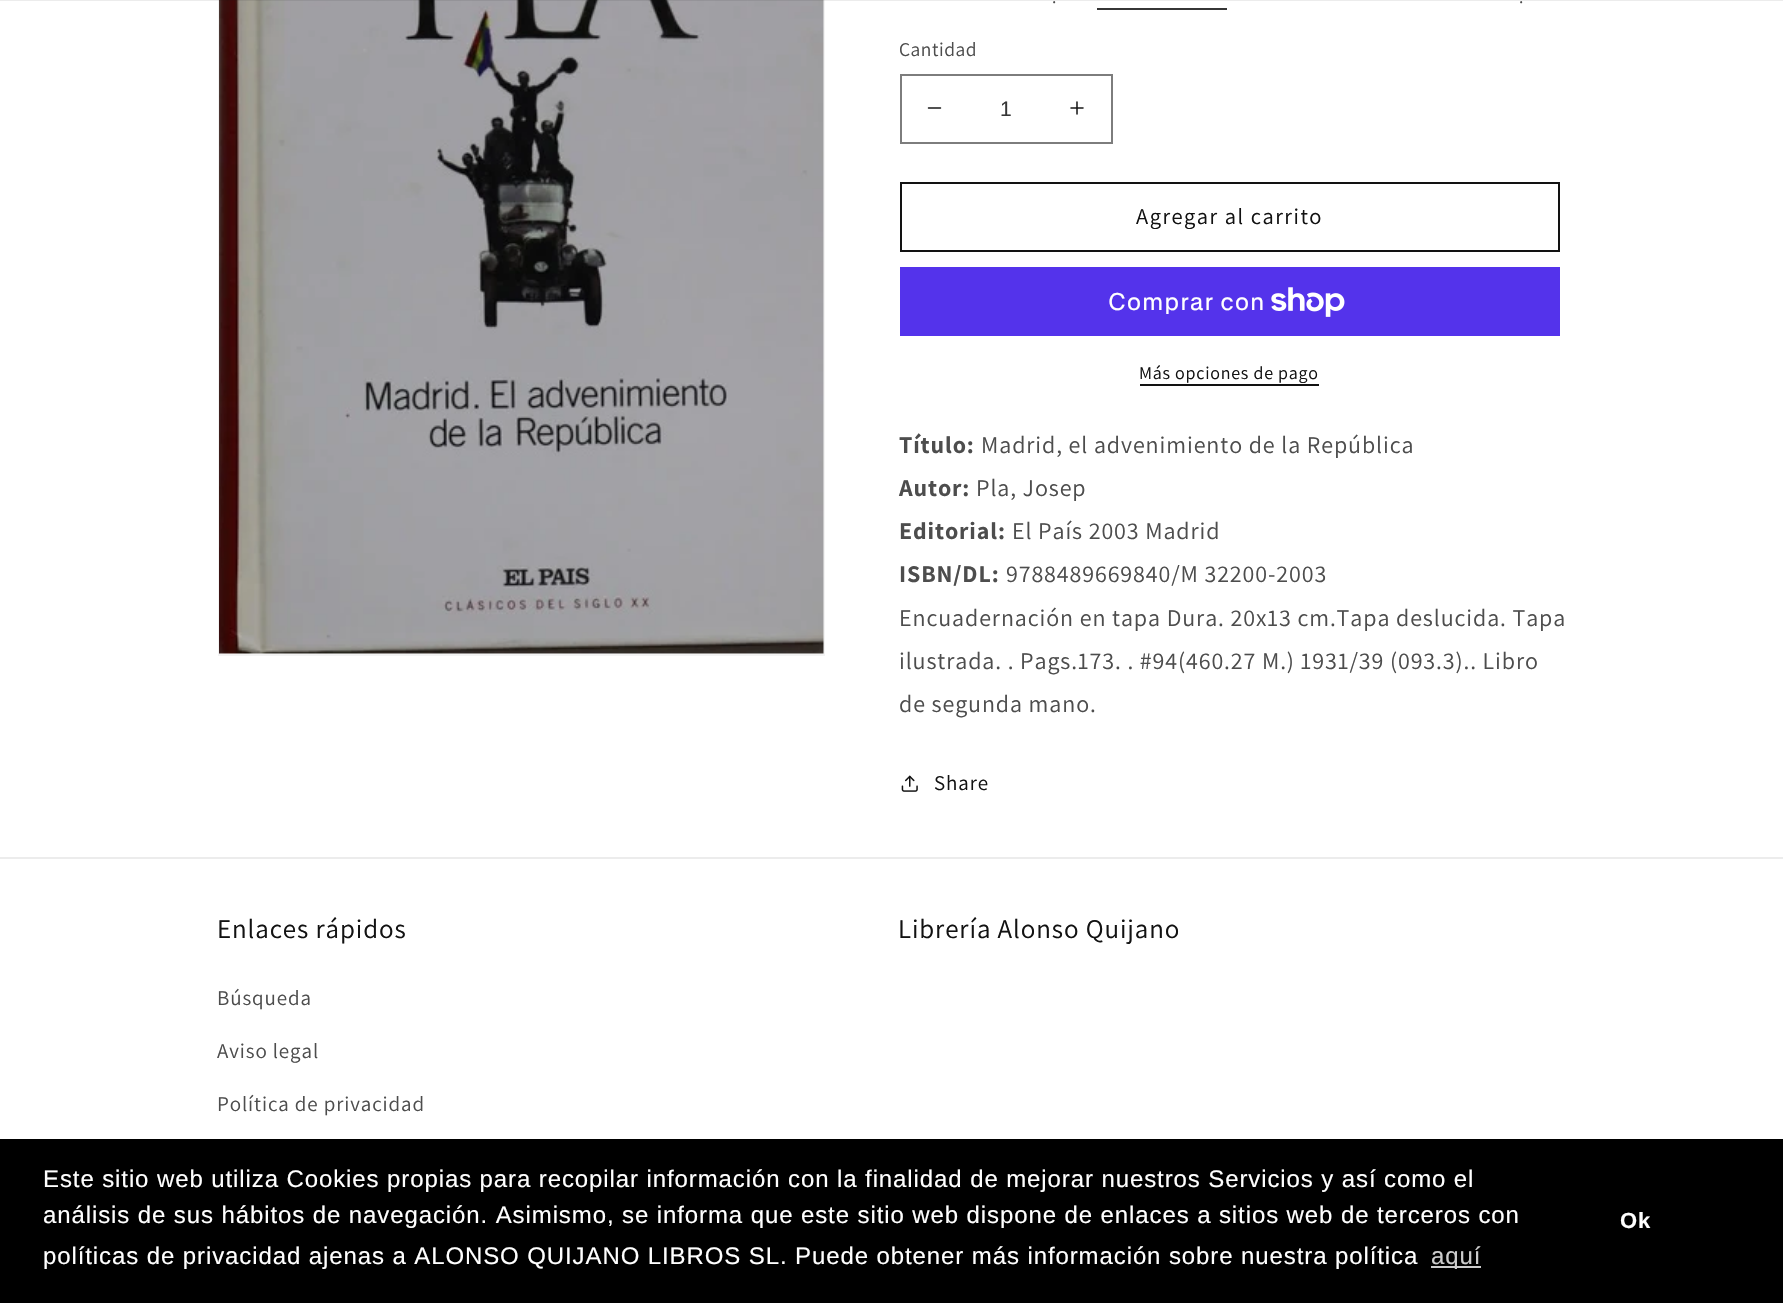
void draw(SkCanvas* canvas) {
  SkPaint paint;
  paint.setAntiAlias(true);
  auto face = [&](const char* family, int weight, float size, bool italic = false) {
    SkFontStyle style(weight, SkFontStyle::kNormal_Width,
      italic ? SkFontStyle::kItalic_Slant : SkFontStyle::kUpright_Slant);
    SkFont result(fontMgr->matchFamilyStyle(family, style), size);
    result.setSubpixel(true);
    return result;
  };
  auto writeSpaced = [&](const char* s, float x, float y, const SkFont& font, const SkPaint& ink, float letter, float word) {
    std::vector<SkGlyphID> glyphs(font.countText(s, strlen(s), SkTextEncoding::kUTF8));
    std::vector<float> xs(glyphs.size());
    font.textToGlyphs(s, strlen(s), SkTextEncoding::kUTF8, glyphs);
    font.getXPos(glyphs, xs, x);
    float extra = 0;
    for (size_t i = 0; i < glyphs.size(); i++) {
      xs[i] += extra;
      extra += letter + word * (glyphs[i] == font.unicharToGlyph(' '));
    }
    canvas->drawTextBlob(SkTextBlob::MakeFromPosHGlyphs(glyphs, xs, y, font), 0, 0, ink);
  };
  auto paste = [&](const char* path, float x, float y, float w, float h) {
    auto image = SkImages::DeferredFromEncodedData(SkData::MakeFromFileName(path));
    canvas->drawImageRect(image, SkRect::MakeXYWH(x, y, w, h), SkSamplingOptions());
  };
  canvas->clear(0xffffffff);
  paint.setStroke(true);
  paint.setStrokeWidth(2);
  paint.setColor(0xfff3f3f3);
  canvas->drawRect(SkRect::MakeXYWH(219, -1, 605, 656), paint);
  paste("img/1.png", 219, 0, 605, 654);
  paint.setStroke(false);
  paint.setColor(0x14121212);
  canvas->drawRect(SkRect::MakeXYWH(0, 0, 1783, 1), paint);
  paint.setColor(0xff363636);
  canvas->drawRect(SkRect::MakeXYWH(1097, 8, 130, 2), paint);
  paste("img/2.png", 927, 107, 15, 2);
  paste("img/3.png", 1070, 101, 14, 14);
  paint.setStroke(true);
  paint.setColor(0xff7d7d7d);
  canvas->drawRect(SkRect::MakeXYWH(901, 75, 211, 68), paint);
  paint.setColor(0xff121212);
  canvas->drawRect(SkRect::MakeXYWH(901, 183, 658, 68), paint);
  paint.setStroke(false);
  paint.setColor(0xff5433eb);
  canvas->drawRect(SkRect::MakeXYWH(900, 267, 660, 69), paint);
  paste("img/4.png", 1271, 287, 74, 30);
  paint.setColor(0xff121212);
  canvas->drawRect(SkRect::MakeXYWH(1140, 384, 179, 2), paint);
  paste("img/5.png", 901, 775, 17, 17);
  {
    const struct { float x, y, w, h; SkColor color; } items[] = {
      {0, 857, 1783, 2, 0xffececec},
      {0, 1139, 1783, 164, 0xff000000},
      {1431, 1266, 50, 2, 0xffcccccc},
    };
    for (auto [x, y, w, h, color] : items) {
      paint.setColor(color);
      canvas->drawRect(SkRect::MakeXYWH(x, y, w, h), paint);
    }
  }
  auto f0 = face("Assistant", 400, 18);
  paint.setColor(0xff4d4d4d);
  writeSpaced(".", 1052, 3, f0, paint, 1, 0);
  writeSpaced(".", 1519, 3, f0, paint, 1, 0);
  auto f1 = face("Assistant", 400, 19.5f);
  writeSpaced("Cantidad", 899, 56, f1, paint, 0.5f, 0);
  auto f2 = face("Liberation Sans", 400, 21);
  paint.setColor(0xff363636);
  canvas->drawString("1", 1000, 116, f2, paint);
  auto f3 = face("Assistant", 400, 22.5f);
  paint.setColor(0xff121212);
  writeSpaced("Agregar al carrito", 1136, 224, f3, paint, 1.5f, 0);
  auto f4 = face("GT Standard", 400, 24);
  paint.setColor(0xffffffff);
  writeSpaced("Comprar con", 1108, 310, f4, paint, 0.9f, 0);
  paint.setColor(0xff121212);
  writeSpaced("Más opciones de pago", 1139, 379, f0, paint, 0.75f, 0);
  auto f5 = face("Assistant", 700, 24);
  paint.setColor(0xff4d4d4d);
  writeSpaced("Título:", 899, 453, f5, paint, 0.9f, 0);
  auto f6 = face("Assistant", 400, 24);
  writeSpaced("Madrid, el advenimiento de la República", 981, 453, f6, paint, 0.9f, 0);
  writeSpaced("Autor:", 899, 496, f5, paint, 0.9f, 0);
  writeSpaced("Pla, Josep", 976, 496, f6, paint, 0.9f, 0);
  writeSpaced("Editorial:", 899, 539, f5, paint, 0.9f, 0);
  writeSpaced("El País 2003 Madrid", 1012, 539, f6, paint, 0.9f, 0);
  writeSpaced("ISBN/DL:", 899, 582, f5, paint, 0.9f, 0);
  {
    const struct { const char* s; float x, y; } items[] = {
      {"9788489669840/M 32200-2003", 1006, 582},
      {"Encuadernación en tapa Dura. 20x13 cm.Tapa deslucida. Tapa", 899, 626},
      {"ilustrada. . Pags.173. . #94(460.27 M.) 1931/39 (093.3).. Libro", 899, 669},
      {"de segunda mano.", 899, 712},
    };
    for (auto [s, x, y] : items) {
      writeSpaced(s, x, y, f6, paint, 0.9f, 0);
    }
  }
  auto f7 = face("Assistant", 400, 21);
  paint.setColor(0xff121212);
  writeSpaced("Share", 934, 790, f7, paint, 0.9f, 0);
  auto f8 = face("Assistant", 400, 27);
  writeSpaced("Enlaces rápidos", 217, 938, f8, paint, 0.9f, 0);
  paint.setColor(0xff4d4d4d);
  {
    const struct { const char* s; float x, y; } items[] = {
      {"Búsqueda", 217, 1005},
      {"Aviso legal", 217, 1058},
      {"Política de privacidad", 217, 1111},
    };
    for (auto [s, x, y] : items) {
      writeSpaced(s, x, y, f7, paint, 0.9f, 0);
    }
  }
  paint.setColor(0xff121212);
  writeSpaced("Librería Alonso Quijano", 898, 938, f8, paint, 0.9f, 0);
  auto f9 = face("Liberation Sans", 400, 24);
  paint.setColor(0xffffffff);
  {
    const struct { const char* s; float x, y; } items[] = {
      {"Este sitio web utiliza Cookies propias para recopilar información con la finalidad de mejorar nuestros Servicios y así como el", 43, 1187},
      {"análisis de sus hábitos de navegación. Asimismo, se informa que este sitio web dispone de enlaces a sitios web de terceros con", 43, 1223},
      {"políticas de privacidad ajenas a ALONSO QUIJANO LIBROS SL. Puede obtener más información sobre nuestra política", 43, 1264},
    };
    for (auto [s, x, y] : items) {
      writeSpaced(s, x, y, f9, paint, 0.9f, 0);
    }
  }
  paint.setColor(0xffcccccc);
  writeSpaced("aquí", 1431, 1264, f9, paint, 0.9f, 0);
  auto f10 = face("Liberation Sans", 700, 22);
  paint.setColor(0xffffffff);
  writeSpaced("Ok", 1620, 1228, f10, paint, 0.9f, 0);
}
